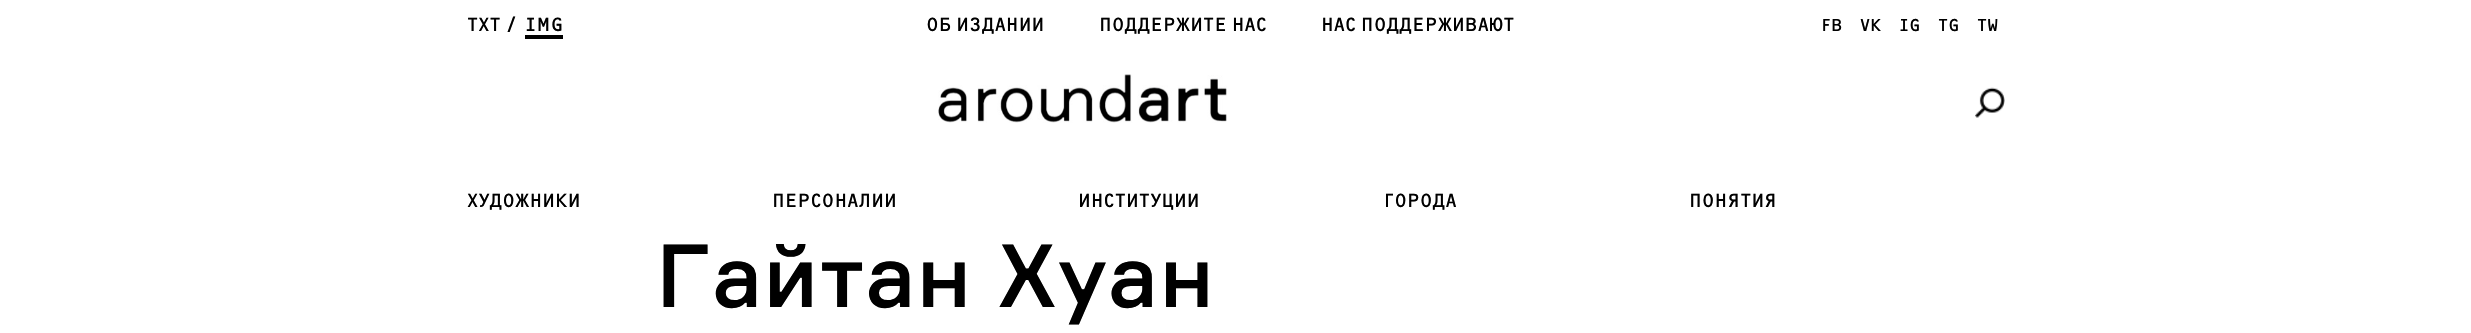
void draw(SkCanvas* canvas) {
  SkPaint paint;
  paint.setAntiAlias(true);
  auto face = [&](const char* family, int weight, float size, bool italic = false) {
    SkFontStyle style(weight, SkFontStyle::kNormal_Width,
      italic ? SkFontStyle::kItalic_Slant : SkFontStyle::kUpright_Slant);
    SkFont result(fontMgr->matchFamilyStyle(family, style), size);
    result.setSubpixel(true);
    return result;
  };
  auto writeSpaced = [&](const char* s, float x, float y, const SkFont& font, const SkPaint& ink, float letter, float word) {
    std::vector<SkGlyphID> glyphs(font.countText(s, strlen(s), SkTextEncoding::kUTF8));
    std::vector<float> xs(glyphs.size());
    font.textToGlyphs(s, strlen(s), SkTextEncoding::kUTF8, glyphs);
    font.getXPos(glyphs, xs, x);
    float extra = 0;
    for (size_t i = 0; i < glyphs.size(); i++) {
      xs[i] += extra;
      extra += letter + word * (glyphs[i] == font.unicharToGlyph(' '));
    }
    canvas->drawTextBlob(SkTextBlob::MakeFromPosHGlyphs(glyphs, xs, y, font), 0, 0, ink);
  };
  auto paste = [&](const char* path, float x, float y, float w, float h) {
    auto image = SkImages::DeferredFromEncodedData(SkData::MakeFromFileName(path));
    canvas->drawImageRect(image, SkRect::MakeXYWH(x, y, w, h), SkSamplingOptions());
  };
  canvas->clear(0xffffffff);
  paint.setColor(0xff000000);
  canvas->drawRect(SkRect::MakeXYWH(525, 35, 38, 4), paint);
  paste("img/1.png", 938, 74, 289, 49);
  paste("img/2.png", 1975, 87, 30, 31);
  auto f0 = face("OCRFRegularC", 400, 20);
  {
    const struct { const char* s; float x, y; } items[] = {
      {"TXT", 467, 31},
      {"/", 505, 31},
      {"IMG", 525, 31},
      {"ОБ ИЗДАНИИ", 926, 31},
      {"ПОДДЕРЖИТЕ НАС", 1099, 31},
      {"НАС ПОДДЕРЖИВАЮТ", 1321, 31},
    };
    for (auto [s, x, y] : items) {
      canvas->drawString(s, x, y, f0, paint);
    }
  }
  auto f1 = face("OCRFRegularC", 400, 18);
  {
    const struct { const char* s; float x, y; } items[] = {
      {"FB", 1821, 31},
      {"VK", 1860, 31},
      {"IG", 1899, 31},
      {"TG", 1938, 31},
      {"TW", 1977, 31},
    };
    for (auto [s, x, y] : items) {
      canvas->drawString(s, x, y, f1, paint);
    }
  }
  {
    const struct { const char* s; float x, y; } items[] = {
      {"ХУДОЖНИКИ", 467, 207},
      {"ПЕРСОНАЛИИ", 772, 207},
      {"ИНСТИТУЦИИ", 1078, 207},
      {"ГОРОДА", 1383, 207},
      {"ПОНЯТИЯ", 1689, 207},
    };
    for (auto [s, x, y] : items) {
      canvas->drawString(s, x, y, f0, paint);
    }
  }
  auto f2 = face("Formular", 500, 87.5f);
  writeSpaced("Гайтан Хуан", 656, 307, f2, paint, 1, 0);
}
